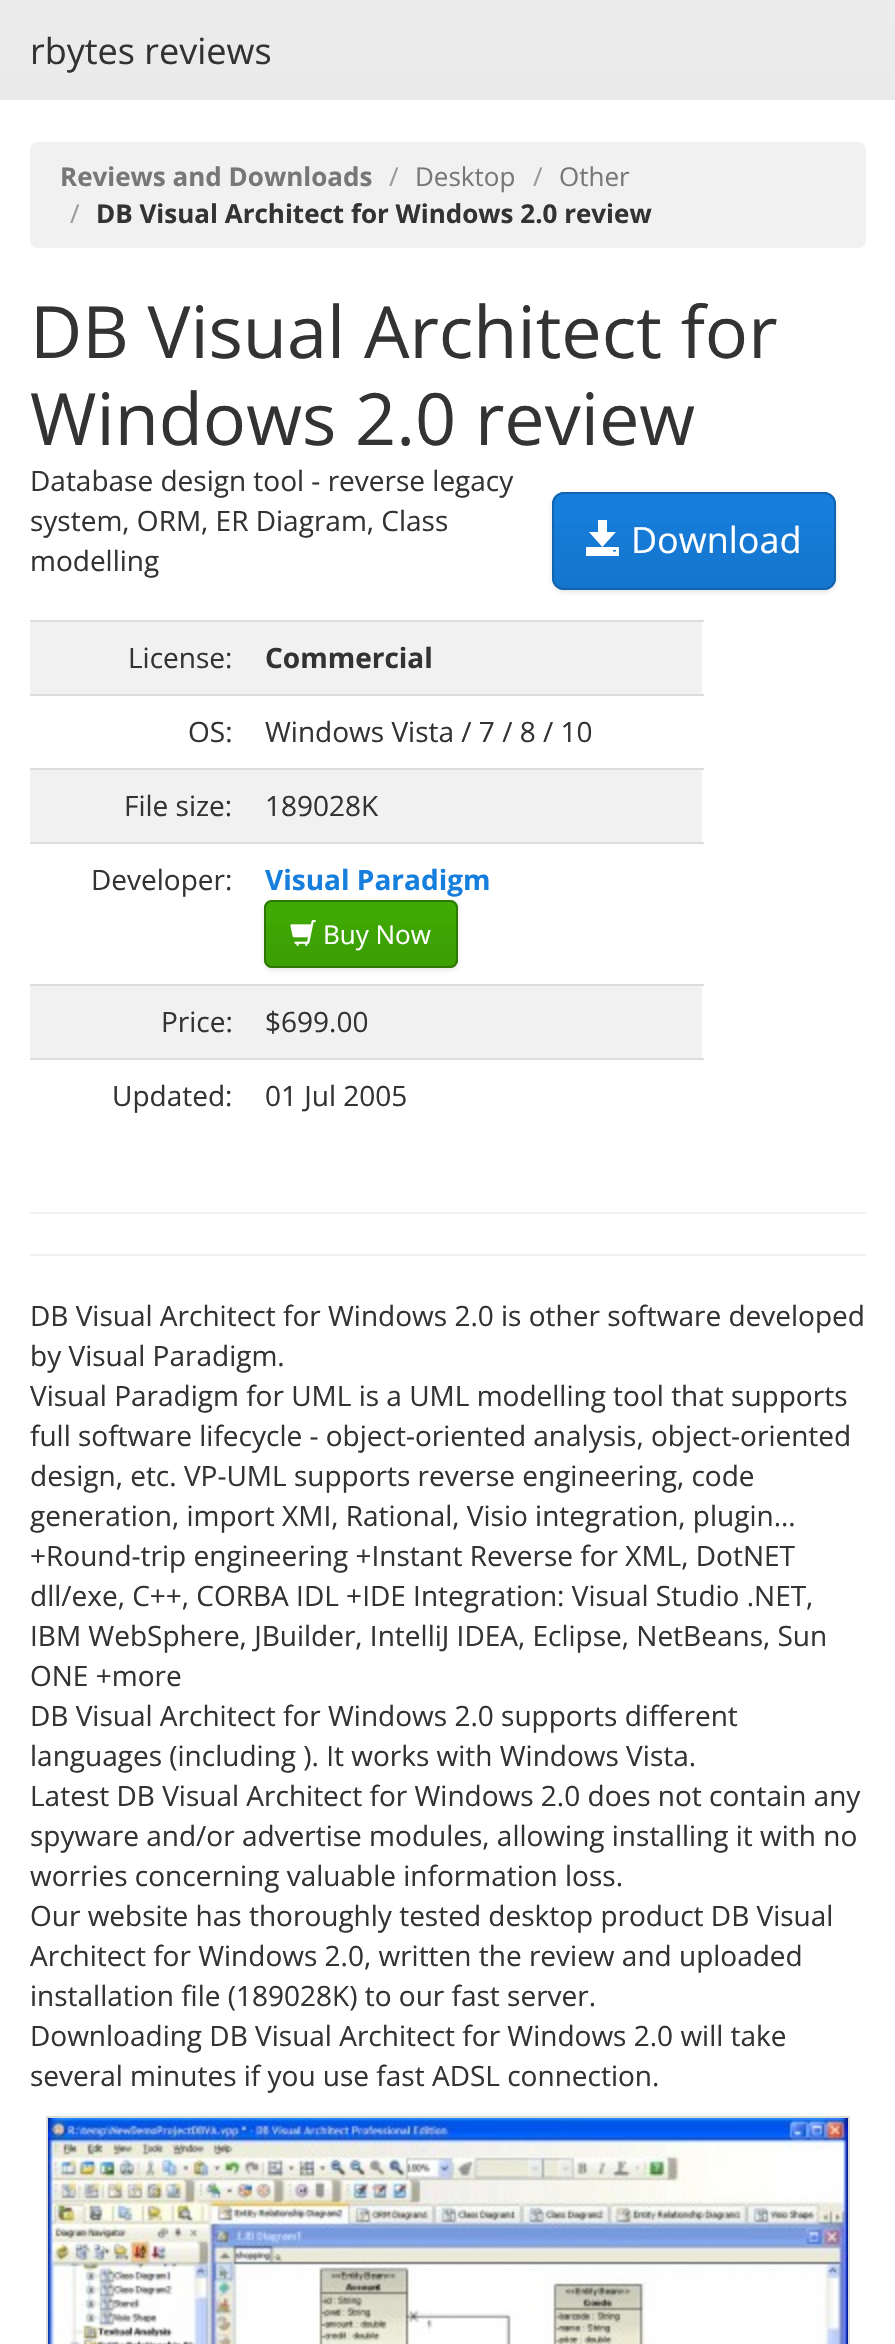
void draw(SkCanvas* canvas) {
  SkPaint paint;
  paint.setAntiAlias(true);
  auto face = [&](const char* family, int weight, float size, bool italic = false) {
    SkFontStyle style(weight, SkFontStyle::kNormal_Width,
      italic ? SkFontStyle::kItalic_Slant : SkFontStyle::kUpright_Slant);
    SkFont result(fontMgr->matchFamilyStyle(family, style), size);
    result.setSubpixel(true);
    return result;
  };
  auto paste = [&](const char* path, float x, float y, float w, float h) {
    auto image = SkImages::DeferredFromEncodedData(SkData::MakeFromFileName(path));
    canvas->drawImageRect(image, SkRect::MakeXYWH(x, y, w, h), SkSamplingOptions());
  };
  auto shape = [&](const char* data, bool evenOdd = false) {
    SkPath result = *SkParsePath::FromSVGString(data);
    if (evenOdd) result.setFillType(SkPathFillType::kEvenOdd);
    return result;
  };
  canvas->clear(0xffffffff);
  {
    const SkColor colors[] = {0xffececec, 0xffeaeaea};
    const float stops[] = {0, 1};
    const SkPoint ends[] = {{448, 0}, {448, 100}};
    paint.setShader(SkGradientShader::MakeLinear(ends, colors, stops, 2, SkTileMode::kClamp));
    paint.setAlpha(255);
  }
  canvas->drawRect(SkRect::MakeXYWH(0, 0, 895, 100), paint);
  paint.setShader(nullptr);
  paint.setColor(0xfff1f1f1);
  canvas->drawRoundRect(SkRect::MakeXYWH(30, 142, 836, 106), 8, 8, paint);
  paint.setColor(0x1a000000);
  paint.setMaskFilter(SkMaskFilter::MakeBlur(kNormal_SkBlurStyle, 2));
  canvas->drawRoundRect(SkRect::MakeXYWH(552, 494, 284, 98), 12, 12, paint);
  paint.setMaskFilter(nullptr);
  paint.setColor(0xff167edd);
  canvas->drawRoundRect(SkRect::MakeXYWH(552, 492, 284, 98), 12, 12, paint);
  canvas->save();
  canvas->clipPath(shape("M564 492H824C830.5 492 836 497.5 836 504V578C836 584.5 830.5 590 824 590H564C557.5 590 552 584.5 552 578V504C552 497.5 557.5 492 564 492Z"), true);
  {
    const SkColor colors[] = {0x00000000, 0x12000000};
    const float stops[] = {0, 1};
    const SkPoint ends[] = {{694, 494}, {694, 588}};
    paint.setShader(SkGradientShader::MakeLinear(ends, colors, stops, 2, SkTileMode::kClamp));
    paint.setAlpha(255);
  }
  canvas->drawRect(SkRect::MakeXYWH(552, 523, 284, 65), paint);
  canvas->restore();
  paint.setStroke(true);
  paint.setStrokeWidth(2);
  paint.setShader(nullptr);
  paint.setColor(0xff1164af);
  canvas->drawRoundRect(SkRect::MakeXYWH(553, 493, 282, 96), 11, 11, paint);
  paste("img/1.png", 586, 520, 33, 36);
  paint.setStroke(false);
  {
    const struct { float x, y, w, h; SkColor color; } items[] = {
      {30, 622, 672, 72, 0xfff1f1f1},
      {30, 620, 674, 2, 0xffdddddd},
      {30, 694, 674, 2, 0xffdddddd},
      {30, 770, 672, 72, 0xfff1f1f1},
      {30, 768, 674, 2, 0xffdddddd},
      {30, 842, 674, 2, 0xffdddddd},
    };
    for (auto [x, y, w, h, color] : items) {
      paint.setColor(color);
      canvas->drawRect(SkRect::MakeXYWH(x, y, w, h), paint);
    }
  }
  paint.setColor(0x1a000000);
  paint.setMaskFilter(SkMaskFilter::MakeBlur(kNormal_SkBlurStyle, 2));
  canvas->drawRoundRect(SkRect::MakeXYWH(264, 902, 194, 68), 8, 8, paint);
  paint.setMaskFilter(nullptr);
  paint.setColor(0xff40aa04);
  canvas->drawRoundRect(SkRect::MakeXYWH(264, 900, 194, 68), 8, 8, paint);
  canvas->save();
  canvas->clipPath(shape("M272 900H450C454.5 900 458 903.5 458 908V960C458 964.5 454.5 968 450 968H272C267.5 968 264 964.5 264 960V908C264 903.5 267.5 900 272 900Z"), true);
  {
    const SkColor colors[] = {0x00000000, 0x12000000};
    const float stops[] = {0, 1};
    const SkPoint ends[] = {{361, 902}, {361, 966}};
    paint.setShader(SkGradientShader::MakeLinear(ends, colors, stops, 2, SkTileMode::kClamp));
    paint.setAlpha(255);
  }
  canvas->drawRect(SkRect::MakeXYWH(264, 922, 194, 44), paint);
  canvas->restore();
  paint.setStroke(true);
  paint.setShader(nullptr);
  paint.setColor(0xff2d7803);
  canvas->drawRoundRect(SkRect::MakeXYWH(265, 901, 192, 66), 7, 7, paint);
  paste("img/2.png", 290, 920, 26, 26);
  paint.setStroke(false);
  {
    const struct { float x, y, w, h; SkColor color; } items[] = {
      {30, 986, 672, 72, 0xfff1f1f1},
      {30, 984, 674, 2, 0xffdddddd},
      {30, 1058, 674, 2, 0xffdddddd},
      {30, 1212, 836, 2, 0xfff1f1f1},
      {30, 1254, 836, 2, 0xfff1f1f1},
    };
    for (auto [x, y, w, h, color] : items) {
      paint.setColor(color);
      canvas->drawRect(SkRect::MakeXYWH(x, y, w, h), paint);
    }
  }
  paint.setStroke(true);
  paint.setColor(0xffdcdcdc);
  canvas->drawRect(SkRect::MakeXYWH(47, 2117, 802, 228), paint);
  paste("img/3.png", 48, 2118, 800, 226);
  auto f0 = face("Open Sans", 400, 36);
  paint.setStroke(false);
  paint.setColor(0xff333333);
  canvas->drawString("rbytes reviews", 30, 64, f0, paint);
  auto f1 = face("Open Sans", 700, 26);
  paint.setColor(0xff777777);
  canvas->drawString("Reviews and Downloads", 60, 186, f1, paint);
  auto f2 = face("Open Sans", 400, 26);
  paint.setColor(0xff999999);
  canvas->drawString("/", 389, 186, f2, paint);
  paint.setColor(0xff777777);
  canvas->drawString("Desktop", 415, 186, f2, paint);
  paint.setColor(0xff999999);
  canvas->drawString("/", 533, 186, f2, paint);
  paint.setColor(0xff777777);
  canvas->drawString("Other", 559, 186, f2, paint);
  paint.setColor(0xff999999);
  canvas->drawString("/", 70, 223, f2, paint);
  paint.setColor(0xff333333);
  canvas->drawString("DB Visual Architect for Windows 2.0 review", 96, 223, f1, paint);
  auto f3 = face("Open Sans", 400, 72);
  canvas->drawString("DB Visual Architect for", 30, 358, f3, paint);
  canvas->drawString("Windows 2.0 review", 30, 445, f3, paint);
  auto f4 = face("Open Sans", 400, 28);
  {
    const struct { const char* s; float x, y; } items[] = {
      {"Database design tool - reverse legacy", 30, 491},
      {"system, ORM, ER Diagram, Class", 30, 531},
      {"modelling", 30, 571},
    };
    for (auto [s, x, y] : items) {
      canvas->drawString(s, x, y, f4, paint);
    }
  }
  paint.setColor(0xffffffff);
  canvas->drawString("Download", 631, 553, f0, paint);
  paint.setColor(0xff333333);
  canvas->drawString("License:", 128, 668, f4, paint);
  auto f5 = face("Open Sans", 700, 28);
  canvas->drawString("Commercial", 265, 668, f5, paint);
  {
    const struct { const char* s; float x, y; } items[] = {
      {"OS:", 188, 742},
      {"Windows Vista / 7 / 8 / 10", 265, 742},
      {"File size:", 124, 816},
      {"189028K", 265, 816},
      {"Developer:", 91, 890},
    };
    for (auto [s, x, y] : items) {
      canvas->drawString(s, x, y, f4, paint);
    }
  }
  paint.setColor(0xff167edd);
  canvas->drawString("Visual Paradigm", 265, 890, f5, paint);
  paint.setColor(0xffffffff);
  canvas->drawString("Buy Now", 323, 944, f2, paint);
  paint.setColor(0xff333333);
  {
    const struct { const char* s; float x, y; } items[] = {
      {"Price:", 161, 1032},
      {"$699.00", 265, 1032},
      {"Updated:", 112, 1106},
      {"01 Jul 2005", 265, 1106},
      {"DB Visual Architect for Windows 2.0 is other software developed", 30, 1326},
      {"by Visual Paradigm.", 30, 1366},
      {"Visual Paradigm for UML is a UML modelling tool that supports", 30, 1406},
      {"full software lifecycle - object-oriented analysis, object-oriented", 30, 1446},
      {"design, etc. VP-UML supports reverse engineering, code", 30, 1486},
      {"generation, import XMI, Rational, Visio integration, plugin...", 30, 1526},
      {"+Round-trip engineering +Instant Reverse for XML, DotNET", 30, 1566},
      {"dll/exe, C++, CORBA IDL +IDE Integration: Visual Studio .NET,", 30, 1606},
      {"IBM WebSphere, JBuilder, IntelliJ IDEA, Eclipse, NetBeans, Sun", 30, 1646},
      {"ONE +more", 30, 1686},
      {"DB Visual Architect for Windows 2.0 supports different", 30, 1726},
      {"languages (including ). It works with Windows Vista.", 30, 1766},
      {"Latest DB Visual Architect for Windows 2.0 does not contain any", 30, 1806},
      {"spyware and/or advertise modules, allowing installing it with no", 30, 1846},
      {"worries concerning valuable information loss.", 30, 1886},
      {"Our website has thoroughly tested desktop product DB Visual", 30, 1926},
      {"Architect for Windows 2.0, written the review and uploaded", 30, 1966},
      {"installation file (189028K) to our fast server.", 30, 2006},
      {"Downloading DB Visual Architect for Windows 2.0 will take", 30, 2046},
      {"several minutes if you use fast ADSL connection.", 30, 2086},
    };
    for (auto [s, x, y] : items) {
      canvas->drawString(s, x, y, f4, paint);
    }
  }
}
